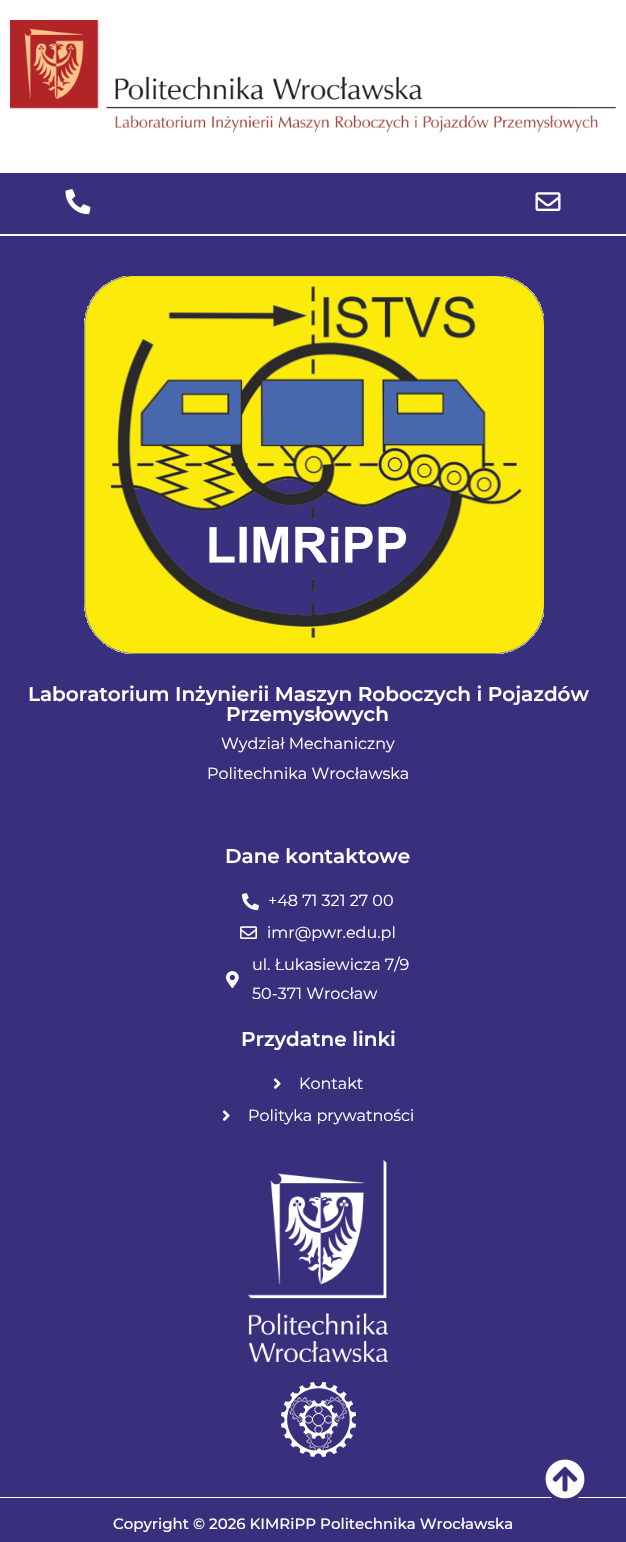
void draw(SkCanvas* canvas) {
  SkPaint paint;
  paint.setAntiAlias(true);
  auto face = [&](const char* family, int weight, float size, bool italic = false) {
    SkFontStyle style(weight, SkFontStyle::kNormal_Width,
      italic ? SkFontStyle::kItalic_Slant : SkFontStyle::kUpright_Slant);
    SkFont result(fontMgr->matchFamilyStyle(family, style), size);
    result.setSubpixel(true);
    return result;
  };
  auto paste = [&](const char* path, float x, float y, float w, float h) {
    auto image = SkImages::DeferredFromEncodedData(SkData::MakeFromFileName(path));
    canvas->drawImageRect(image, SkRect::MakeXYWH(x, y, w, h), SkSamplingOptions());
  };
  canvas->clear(0xffffffff);
  paste("img/1.png", 10, 20, 606, 113);
  paint.setColor(0xff38307d);
  canvas->drawRect(SkRect::MakeXYWH(0, 236, 626, 1261), paint);
  canvas->drawRect(SkRect::MakeXYWH(0, 1498, 626, 44), paint);
  canvas->drawCircle(565, 1479, 23, paint);
  paste("img/2.png", 545, 1459, 40, 40);
  canvas->drawRect(SkRect::MakeXYWH(0, 173, 626, 61), paint);
  paste("img/3.png", 65, 189, 26, 26);
  paste("img/4.png", 535, 192, 26, 19);
  paste("img/5.png", 84, 276, 460, 378);
  paste("img/6.png", 242, 893, 17, 18);
  paste("img/7.png", 240, 926, 17, 13);
  paste("img/8.png", 226, 971, 13, 18);
  paste("img/9.png", 273, 1078, 8, 11);
  paste("img/9.png", 222, 1110, 8, 11);
  paste("img/10.png", 248, 1160, 140, 202);
  paste("img/11.png", 281, 1382, 75, 75);
  auto f0 = face("Montserrat", 600, 20);
  paint.setColor(0xffffffff);
  canvas->drawString("Laboratorium Inżynierii Maszyn Roboczych i Pojazdów", 28, 701, f0, paint);
  canvas->drawString("Przemysłowych", 226, 721, f0, paint);
  auto f1 = face("Montserrat", 400, 16);
  canvas->drawString("Wydział Mechaniczny", 221, 749, f1, paint);
  canvas->drawString("Politechnika Wrocławska", 207, 779, f1, paint);
  canvas->drawString("Dane kontaktowe", 225, 863, f0, paint);
  {
    const struct { const char* s; float x, y; } items[] = {
      {"+48 71 321 27 00", 268, 906},
      {"imr@pwr.edu.pl", 267, 938},
      {"ul. Łukasiewicza 7/9", 252, 970},
      {"50-371 Wrocław", 252, 999},
    };
    for (auto [s, x, y] : items) {
      canvas->drawString(s, x, y, f1, paint);
    }
  }
  canvas->drawString("Przydatne linki", 241, 1046, f0, paint);
  canvas->drawString("Kontakt", 299, 1089, f1, paint);
  canvas->drawString("Polityka prywatności", 248, 1121, f1, paint);
  auto f2 = face("Montserrat", 500, 15);
  canvas->drawString("Copyright © 2026 KIMRiPP Politechnika Wrocławska", 113, 1529, f2, paint);
}
